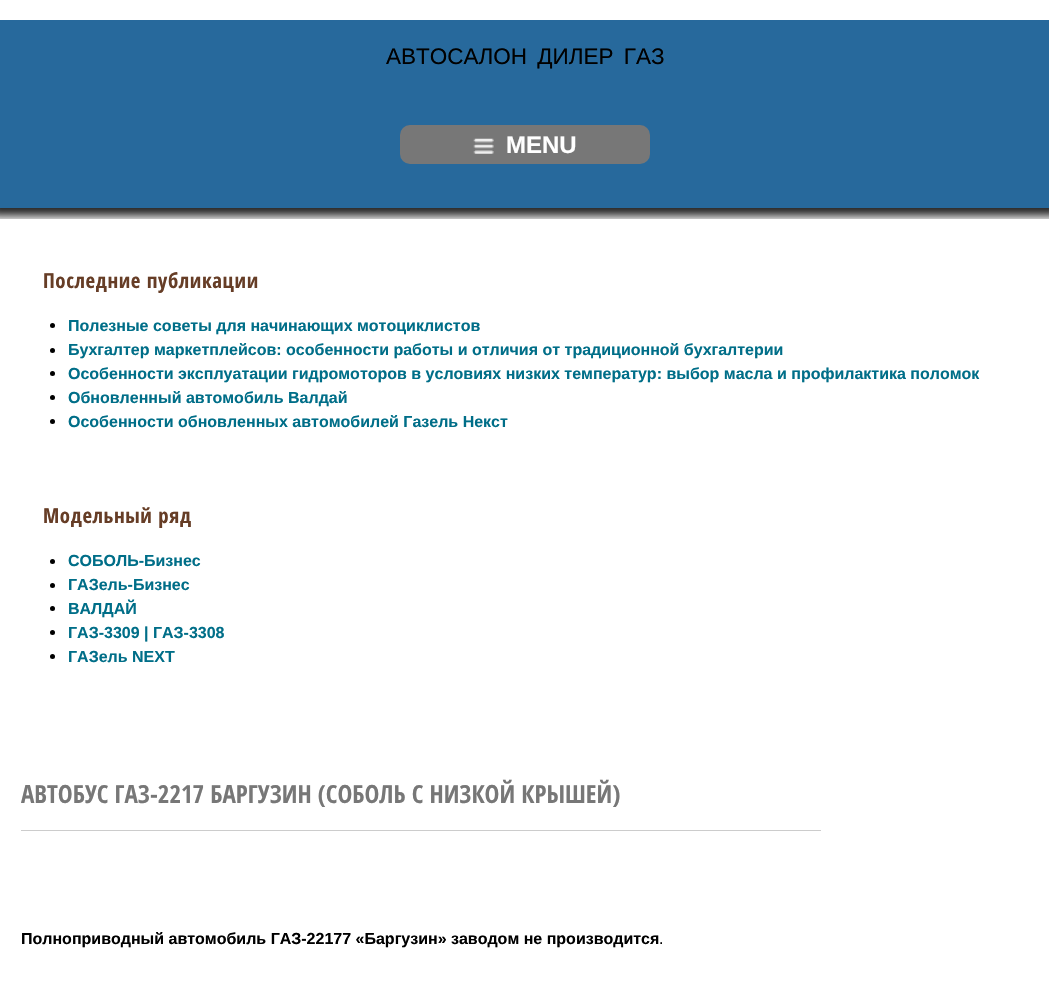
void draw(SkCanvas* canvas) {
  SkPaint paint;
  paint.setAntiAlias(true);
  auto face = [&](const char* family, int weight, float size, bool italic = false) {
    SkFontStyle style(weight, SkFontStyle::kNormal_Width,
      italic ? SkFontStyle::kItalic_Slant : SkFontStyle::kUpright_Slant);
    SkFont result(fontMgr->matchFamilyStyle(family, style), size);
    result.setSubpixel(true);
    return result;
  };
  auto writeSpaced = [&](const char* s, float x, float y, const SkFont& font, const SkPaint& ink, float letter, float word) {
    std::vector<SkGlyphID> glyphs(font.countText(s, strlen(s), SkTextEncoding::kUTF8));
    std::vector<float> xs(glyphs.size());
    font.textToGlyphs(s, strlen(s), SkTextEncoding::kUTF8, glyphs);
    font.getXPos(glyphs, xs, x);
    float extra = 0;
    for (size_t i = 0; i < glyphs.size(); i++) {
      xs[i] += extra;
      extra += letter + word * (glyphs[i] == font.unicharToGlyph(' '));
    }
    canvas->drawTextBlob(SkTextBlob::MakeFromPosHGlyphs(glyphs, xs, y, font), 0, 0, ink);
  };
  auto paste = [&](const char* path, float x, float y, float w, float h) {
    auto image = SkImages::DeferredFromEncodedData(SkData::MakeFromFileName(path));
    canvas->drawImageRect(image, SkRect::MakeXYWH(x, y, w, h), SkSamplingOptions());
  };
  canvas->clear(0xffffffff);
  canvas->save();
  canvas->clipRect(SkRect::MakeXYWH(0, 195, 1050, 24));
  paint.setColor(0xd9000000);
  paint.setMaskFilter(SkMaskFilter::MakeBlur(kNormal_SkBlurStyle, 5));
  canvas->drawRect(SkRect::MakeXYWH(-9, 186, 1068, 30), paint);
  paint.setMaskFilter(nullptr);
  canvas->restore();
  paint.setColor(0xff27699c);
  canvas->drawRect(SkRect::MakeXYWH(0, 20, 1049, 188), paint);
  paint.setColor(0xff777777);
  canvas->drawRoundRect(SkRect::MakeXYWH(400, 125, 250, 39), 10, 10, paint);
  paste("img/1.png", 473, 138, 21, 16);
  paint.setColor(0xff000000);
  canvas->drawCircle(52.5f, 325.5f, 2.5f, paint);
  canvas->drawCircle(52.5f, 350.5f, 2.5f, paint);
  canvas->drawCircle(52.5f, 373.5f, 2.5f, paint);
  canvas->drawCircle(52.5f, 397.5f, 2.5f, paint);
  canvas->drawCircle(52.5f, 421.5f, 2.5f, paint);
  canvas->drawCircle(52.5f, 561.5f, 2.5f, paint);
  canvas->drawCircle(52.5f, 585.5f, 2.5f, paint);
  canvas->drawCircle(52.5f, 608.5f, 2.5f, paint);
  canvas->drawCircle(52.5f, 632.5f, 2.5f, paint);
  canvas->drawCircle(52.5f, 656.5f, 2.5f, paint);
  paint.setColor(0xffcccccc);
  canvas->drawRect(SkRect::MakeXYWH(21, 830, 800, 1), paint);
  auto f0 = face("Liberation Sans", 400, 22.5f);
  paint.setColor(0xff000000);
  writeSpaced("АВТОСАЛОН ДИЛЕР ГАЗ", 386, 64, f0, paint, 0, 4);
  auto f1 = face("Liberation Sans", 700, 24);
  paint.setColor(0xffffffff);
  canvas->drawString("MENU", 506, 153, f1, paint);
  auto f2 = face("Open Sans Condensed", 700, 20.75f);
  paint.setColor(0xff663d26);
  writeSpaced("Последние публикации", 43, 288, f2, paint, 0.6f, 0);
  auto f3 = face("Liberation Sans", 700, 16);
  paint.setColor(0xff006e88);
  {
    const struct { const char* s; float x, y; } items[] = {
      {"Полезные советы для начинающих мотоциклистов", 68, 331},
      {"Бухгалтер маркетплейсов: особенности работы и отличия от традиционной бухгалтерии", 68, 355},
      {"Особенности эксплуатации гидромоторов в условиях низких температур: выбор масла и профилактика поломок", 68, 379},
      {"Обновленный автомобиль Валдай", 68, 403},
      {"Особенности обновленных автомобилей Газель Некст", 68, 427},
    };
    for (auto [s, x, y] : items) {
      canvas->drawString(s, x, y, f3, paint);
    }
  }
  paint.setColor(0xff663d26);
  writeSpaced("Модельный ряд", 43, 523, f2, paint, 0.6f, 0);
  paint.setColor(0xff006e88);
  {
    const struct { const char* s; float x, y; } items[] = {
      {"СОБОЛЬ-Бизнес", 68, 566},
      {"ГАЗель-Бизнес", 68, 590},
      {"ВАЛДАЙ", 68, 614},
      {"ГАЗ-3309 | ГАЗ-3308", 68, 638},
      {"ГАЗель NEXT", 68, 662},
    };
    for (auto [s, x, y] : items) {
      canvas->drawString(s, x, y, f3, paint);
    }
  }
  auto f4 = face("Open Sans Condensed", 700, 25);
  paint.setColor(0xff777777);
  canvas->drawString("АВТОБУС ГАЗ-2217 БАРГУЗИН (СОБОЛЬ С НИЗКОЙ КРЫШЕЙ)", 21, 803, f4, paint);
  paint.setColor(0xff000000);
  canvas->drawString("Полноприводный автомобиль ГАЗ-22177 «Баргузин» заводом не производится", 21, 944, f3, paint);
  auto f5 = face("Liberation Sans", 400, 16);
  canvas->drawString(".", 659, 944, f5, paint);
}
